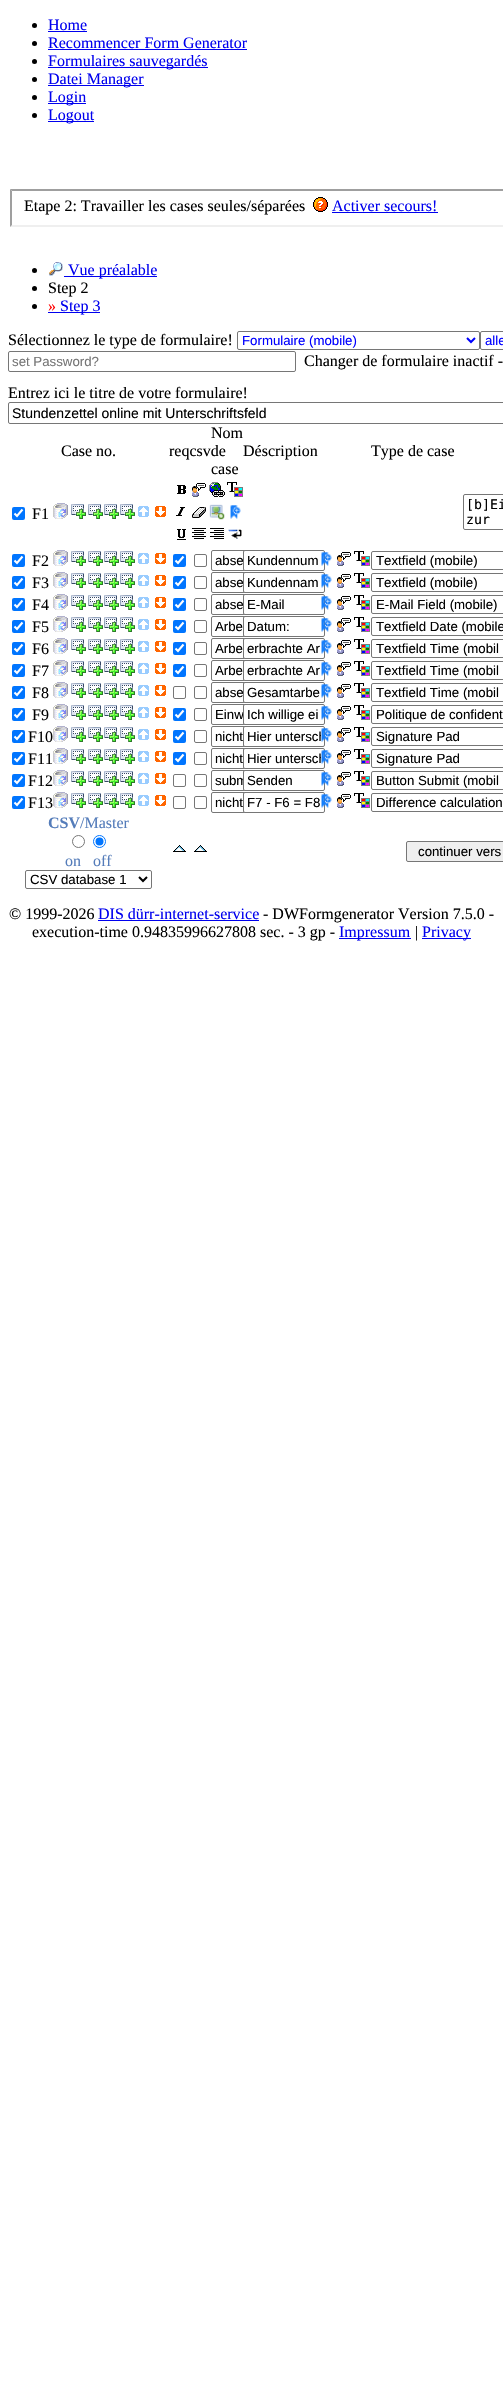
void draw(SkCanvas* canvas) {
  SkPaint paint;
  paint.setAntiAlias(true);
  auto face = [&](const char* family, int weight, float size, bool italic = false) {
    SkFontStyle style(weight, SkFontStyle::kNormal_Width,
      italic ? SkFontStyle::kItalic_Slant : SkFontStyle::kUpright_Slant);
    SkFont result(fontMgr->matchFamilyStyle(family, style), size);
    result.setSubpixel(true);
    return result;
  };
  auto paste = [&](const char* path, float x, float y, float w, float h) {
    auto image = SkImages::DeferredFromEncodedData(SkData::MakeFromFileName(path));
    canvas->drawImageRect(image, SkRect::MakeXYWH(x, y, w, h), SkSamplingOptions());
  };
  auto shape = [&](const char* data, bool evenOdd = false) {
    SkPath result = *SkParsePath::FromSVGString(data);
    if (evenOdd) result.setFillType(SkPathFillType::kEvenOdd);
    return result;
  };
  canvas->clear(0xffffffff);
  paint.setColor(0xff000000);
  canvas->drawCircle(34.5f, 25.5f, 2.5f, paint);
  paint.setColor(0xff0000ee);
  canvas->drawRect(SkRect::MakeXYWH(48, 31, 39, 1), paint);
  paint.setColor(0xff000000);
  canvas->drawCircle(34.5f, 43.5f, 2.5f, paint);
  paint.setColor(0xff0000ee);
  canvas->drawRect(SkRect::MakeXYWH(48, 49, 199, 1), paint);
  paint.setColor(0xff000000);
  canvas->drawCircle(34.5f, 61.5f, 2.5f, paint);
  paint.setColor(0xff0000ee);
  canvas->drawRect(SkRect::MakeXYWH(48, 67, 160, 1), paint);
  paint.setColor(0xff000000);
  canvas->drawCircle(34.5f, 79.5f, 2.5f, paint);
  paint.setColor(0xff0000ee);
  canvas->drawRect(SkRect::MakeXYWH(48, 85, 96, 1), paint);
  paint.setColor(0xff000000);
  canvas->drawCircle(34.5f, 97.5f, 2.5f, paint);
  paint.setColor(0xff0000ee);
  canvas->drawRect(SkRect::MakeXYWH(48, 103, 38, 1), paint);
  paint.setColor(0xff000000);
  canvas->drawCircle(34.5f, 115.5f, 2.5f, paint);
  paint.setColor(0xff0000ee);
  canvas->drawRect(SkRect::MakeXYWH(48, 121, 46, 1), paint);
  paint.setColor(0xff9f9f9f);
  canvas->drawPath(shape("M10 189H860L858 191H12Z"), paint);
  paint.setColor(0xffefefef);
  canvas->drawPath(shape("M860 227H10L12 225H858Z"), paint);
  paint.setColor(0xff9f9f9f);
  canvas->drawPath(shape("M10 227V189L12 191V225Z"), paint);
  paste("img/1.png", 313, 197, 15, 15);
  paint.setColor(0xff0000ee);
  canvas->drawRect(SkRect::MakeXYWH(332, 212, 106, 1), paint);
  paint.setColor(0xff000000);
  canvas->drawCircle(34.5f, 270.5f, 2.5f, paint);
  paste("img/2.png", 49, 262, 14, 14);
  paint.setColor(0xff0000ee);
  canvas->drawRect(SkRect::MakeXYWH(64, 276, 93, 1), paint);
  paint.setColor(0xff000000);
  canvas->drawCircle(34.5f, 288.5f, 2.5f, paint);
  canvas->drawCircle(34.5f, 306.5f, 2.5f, paint);
  paint.setColor(0xff0000ee);
  canvas->drawRect(SkRect::MakeXYWH(48, 312, 52, 1), paint);
  paint.setStroke(true);
  paint.setStrokeWidth(1);
  paint.setColor(0xff767676);
  canvas->drawRoundRect(SkRect::MakeXYWH(237.5f, 331.5f, 242, 18), 1.5f, 1.5f, paint);
  paint.setStrokeWidth(2);
  paint.setColor(0xff0000ff);
  canvas->drawPath(shape("M467 338L471 342L475 338"), paint);
  paint.setStrokeWidth(1);
  paint.setColor(0xff767676);
  canvas->drawRoundRect(SkRect::MakeXYWH(480.5f, 331.5f, 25, 18), 1.5f, 1.5f, paint);
  canvas->drawRoundRect(SkRect::MakeXYWH(8.5f, 351.5f, 287, 20), 1.5f, 1.5f, paint);
  canvas->drawRoundRect(SkRect::MakeXYWH(8.5f, 402.5f, 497, 21), 1.5f, 1.5f, paint);
  paint.setStroke(false);
  paint.setColor(0xff0075ff);
  canvas->drawRoundRect(SkRect::MakeXYWH(12, 507, 13, 13), 2, 2, paint);
  paint.setStroke(true);
  paint.setStrokeWidth(2.1f);
  paint.setColor(0xffffffff);
  canvas->drawPath(shape("M14.5 513.5L17 516L22.5 509.5"), paint);
  paste("img/3.png", 53, 503, 15, 16);
  paste("img/4.png", 71, 504, 15, 15);
  paste("img/4.png", 88, 504, 15, 15);
  paste("img/4.png", 104, 504, 15, 15);
  paste("img/4.png", 120, 504, 15, 15);
  paste("img/5.png", 138, 506, 11, 11);
  paste("img/6.png", 155, 506, 11, 11);
  paste("img/7.png", 177, 485, 9, 9);
  paste("img/8.png", 192, 483, 14, 14);
  paste("img/9.png", 209, 482, 16, 15);
  paste("img/10.png", 227, 482, 16, 15);
  paste("img/11.png", 176, 507, 9, 9);
  paste("img/12.png", 192, 507, 14, 11);
  paste("img/13.png", 209, 504, 16, 16);
  paste("img/14.png", 230, 505, 11, 14);
  paste("img/15.png", 177, 529, 9, 11);
  paste("img/16.png", 192, 528, 14, 11);
  paste("img/17.png", 210, 528, 14, 11);
  paste("img/18.png", 228, 529, 14, 10);
  paint.setStrokeWidth(1);
  paint.setColor(0xff767676);
  canvas->drawRoundRect(SkRect::MakeXYWH(463.5f, 494.5f, 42, 35), 1.5f, 1.5f, paint);
  paint.setStroke(false);
  paint.setColor(0xff0075ff);
  canvas->drawRoundRect(SkRect::MakeXYWH(12, 554, 13, 13), 2, 2, paint);
  paint.setStroke(true);
  paint.setStrokeWidth(2.1f);
  paint.setColor(0xffffffff);
  canvas->drawPath(shape("M14.5 560.5L17 563L22.5 556.5"), paint);
  paste("img/3.png", 53, 550, 15, 16);
  paste("img/4.png", 71, 551, 15, 15);
  paste("img/4.png", 88, 551, 15, 15);
  paste("img/4.png", 104, 551, 15, 15);
  paste("img/4.png", 120, 551, 15, 15);
  paste("img/5.png", 138, 553, 11, 11);
  paste("img/6.png", 155, 553, 11, 11);
  paint.setStroke(false);
  paint.setColor(0xff0075ff);
  canvas->drawRoundRect(SkRect::MakeXYWH(173, 554, 13, 13), 2, 2, paint);
  paint.setStroke(true);
  paint.setColor(0xffffffff);
  canvas->drawPath(shape("M175.5 560.5L178 563L183.5 556.5"), paint);
  paint.setStrokeWidth(1);
  paint.setColor(0xff767676);
  canvas->drawRoundRect(SkRect::MakeXYWH(194.5f, 554.5f, 12, 12), 1.5f, 1.5f, paint);
  canvas->drawRoundRect(SkRect::MakeXYWH(211.5f, 550.5f, 38, 20), 1.5f, 1.5f, paint);
  paint.setStroke(false);
  paint.setColor(0xffffffff);
  canvas->drawRoundRect(SkRect::MakeXYWH(243.5f, 550.5f, 81, 20), 1.5f, 1.5f, paint);
  paint.setStroke(true);
  paint.setColor(0xff767676);
  canvas->drawRoundRect(SkRect::MakeXYWH(243.5f, 550.5f, 81, 20), 1.5f, 1.5f, paint);
  paste("img/19.png", 321, 552, 11, 14);
  paste("img/8.png", 337, 552, 14, 14);
  paste("img/10.png", 354, 551, 16, 15);
  canvas->drawRoundRect(SkRect::MakeXYWH(371.5f, 551.5f, 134, 18), 1.5f, 1.5f, paint);
  paint.setStroke(false);
  paint.setColor(0xff0075ff);
  canvas->drawRoundRect(SkRect::MakeXYWH(12, 576, 13, 13), 2, 2, paint);
  paint.setStroke(true);
  paint.setStrokeWidth(2.1f);
  paint.setColor(0xffffffff);
  canvas->drawPath(shape("M14.5 582.5L17 585L22.5 578.5"), paint);
  paste("img/3.png", 53, 572, 15, 16);
  paste("img/4.png", 71, 573, 15, 15);
  paste("img/4.png", 88, 573, 15, 15);
  paste("img/4.png", 104, 573, 15, 15);
  paste("img/4.png", 120, 573, 15, 15);
  paste("img/5.png", 138, 575, 11, 11);
  paste("img/6.png", 155, 575, 11, 11);
  paint.setStroke(false);
  paint.setColor(0xff0075ff);
  canvas->drawRoundRect(SkRect::MakeXYWH(173, 576, 13, 13), 2, 2, paint);
  paint.setStroke(true);
  paint.setColor(0xffffffff);
  canvas->drawPath(shape("M175.5 582.5L178 585L183.5 578.5"), paint);
  paint.setStrokeWidth(1);
  paint.setColor(0xff767676);
  canvas->drawRoundRect(SkRect::MakeXYWH(194.5f, 576.5f, 12, 12), 1.5f, 1.5f, paint);
  canvas->drawRoundRect(SkRect::MakeXYWH(211.5f, 572.5f, 38, 20), 1.5f, 1.5f, paint);
  paint.setStroke(false);
  paint.setColor(0xffffffff);
  canvas->drawRoundRect(SkRect::MakeXYWH(243.5f, 572.5f, 81, 20), 1.5f, 1.5f, paint);
  paint.setStroke(true);
  paint.setColor(0xff767676);
  canvas->drawRoundRect(SkRect::MakeXYWH(243.5f, 572.5f, 81, 20), 1.5f, 1.5f, paint);
  paste("img/19.png", 321, 574, 11, 14);
  paste("img/8.png", 337, 574, 14, 14);
  paste("img/10.png", 354, 573, 16, 15);
  canvas->drawRoundRect(SkRect::MakeXYWH(371.5f, 573.5f, 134, 18), 1.5f, 1.5f, paint);
  paint.setStroke(false);
  paint.setColor(0xff0075ff);
  canvas->drawRoundRect(SkRect::MakeXYWH(12, 598, 13, 13), 2, 2, paint);
  paint.setStroke(true);
  paint.setStrokeWidth(2.1f);
  paint.setColor(0xffffffff);
  canvas->drawPath(shape("M14.5 604.5L17 607L22.5 600.5"), paint);
  paste("img/3.png", 53, 594, 15, 16);
  paste("img/4.png", 71, 595, 15, 15);
  paste("img/4.png", 88, 595, 15, 15);
  paste("img/4.png", 104, 595, 15, 15);
  paste("img/4.png", 120, 595, 15, 15);
  paste("img/5.png", 138, 597, 11, 11);
  paste("img/6.png", 155, 597, 11, 11);
  paint.setStroke(false);
  paint.setColor(0xff0075ff);
  canvas->drawRoundRect(SkRect::MakeXYWH(173, 598, 13, 13), 2, 2, paint);
  paint.setStroke(true);
  paint.setColor(0xffffffff);
  canvas->drawPath(shape("M175.5 604.5L178 607L183.5 600.5"), paint);
  paint.setStrokeWidth(1);
  paint.setColor(0xff767676);
  canvas->drawRoundRect(SkRect::MakeXYWH(194.5f, 598.5f, 12, 12), 1.5f, 1.5f, paint);
  canvas->drawRoundRect(SkRect::MakeXYWH(211.5f, 594.5f, 38, 20), 1.5f, 1.5f, paint);
  paint.setStroke(false);
  paint.setColor(0xffffffff);
  canvas->drawRoundRect(SkRect::MakeXYWH(243.5f, 594.5f, 81, 20), 1.5f, 1.5f, paint);
  paint.setStroke(true);
  paint.setColor(0xff767676);
  canvas->drawRoundRect(SkRect::MakeXYWH(243.5f, 594.5f, 81, 20), 1.5f, 1.5f, paint);
  paste("img/19.png", 321, 596, 11, 14);
  paste("img/8.png", 337, 596, 14, 14);
  paste("img/10.png", 354, 595, 16, 15);
  canvas->drawRoundRect(SkRect::MakeXYWH(371.5f, 595.5f, 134, 18), 1.5f, 1.5f, paint);
  paint.setStroke(false);
  paint.setColor(0xff0075ff);
  canvas->drawRoundRect(SkRect::MakeXYWH(12, 620, 13, 13), 2, 2, paint);
  paint.setStroke(true);
  paint.setStrokeWidth(2.1f);
  paint.setColor(0xffffffff);
  canvas->drawPath(shape("M14.5 626.5L17 629L22.5 622.5"), paint);
  paste("img/3.png", 53, 616, 15, 16);
  paste("img/4.png", 71, 617, 15, 15);
  paste("img/4.png", 88, 617, 15, 15);
  paste("img/4.png", 104, 617, 15, 15);
  paste("img/4.png", 120, 617, 15, 15);
  paste("img/5.png", 138, 619, 11, 11);
  paste("img/6.png", 155, 619, 11, 11);
  paint.setStroke(false);
  paint.setColor(0xff0075ff);
  canvas->drawRoundRect(SkRect::MakeXYWH(173, 620, 13, 13), 2, 2, paint);
  paint.setStroke(true);
  paint.setColor(0xffffffff);
  canvas->drawPath(shape("M175.5 626.5L178 629L183.5 622.5"), paint);
  paint.setStrokeWidth(1);
  paint.setColor(0xff767676);
  canvas->drawRoundRect(SkRect::MakeXYWH(194.5f, 620.5f, 12, 12), 1.5f, 1.5f, paint);
  canvas->drawRoundRect(SkRect::MakeXYWH(211.5f, 616.5f, 38, 20), 1.5f, 1.5f, paint);
  paint.setStroke(false);
  paint.setColor(0xffffffff);
  canvas->drawRoundRect(SkRect::MakeXYWH(243.5f, 616.5f, 81, 20), 1.5f, 1.5f, paint);
  paint.setStroke(true);
  paint.setColor(0xff767676);
  canvas->drawRoundRect(SkRect::MakeXYWH(243.5f, 616.5f, 81, 20), 1.5f, 1.5f, paint);
  paste("img/19.png", 321, 618, 11, 14);
  paste("img/8.png", 337, 618, 14, 14);
  paste("img/10.png", 354, 617, 16, 15);
  canvas->drawRoundRect(SkRect::MakeXYWH(371.5f, 617.5f, 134, 18), 1.5f, 1.5f, paint);
  paint.setStroke(false);
  paint.setColor(0xff0075ff);
  canvas->drawRoundRect(SkRect::MakeXYWH(12, 642, 13, 13), 2, 2, paint);
  paint.setStroke(true);
  paint.setStrokeWidth(2.1f);
  paint.setColor(0xffffffff);
  canvas->drawPath(shape("M14.5 648.5L17 651L22.5 644.5"), paint);
  paste("img/3.png", 53, 638, 15, 16);
  paste("img/4.png", 71, 639, 15, 15);
  paste("img/4.png", 88, 639, 15, 15);
  paste("img/4.png", 104, 639, 15, 15);
  paste("img/4.png", 120, 639, 15, 15);
  paste("img/5.png", 138, 641, 11, 11);
  paste("img/6.png", 155, 641, 11, 11);
  paint.setStroke(false);
  paint.setColor(0xff0075ff);
  canvas->drawRoundRect(SkRect::MakeXYWH(173, 642, 13, 13), 2, 2, paint);
  paint.setStroke(true);
  paint.setColor(0xffffffff);
  canvas->drawPath(shape("M175.5 648.5L178 651L183.5 644.5"), paint);
  paint.setStrokeWidth(1);
  paint.setColor(0xff767676);
  canvas->drawRoundRect(SkRect::MakeXYWH(194.5f, 642.5f, 12, 12), 1.5f, 1.5f, paint);
  canvas->drawRoundRect(SkRect::MakeXYWH(211.5f, 638.5f, 38, 20), 1.5f, 1.5f, paint);
  paint.setStroke(false);
  paint.setColor(0xffffffff);
  canvas->drawRoundRect(SkRect::MakeXYWH(243.5f, 638.5f, 81, 20), 1.5f, 1.5f, paint);
  paint.setStroke(true);
  paint.setColor(0xff767676);
  canvas->drawRoundRect(SkRect::MakeXYWH(243.5f, 638.5f, 81, 20), 1.5f, 1.5f, paint);
  paste("img/19.png", 321, 640, 11, 14);
  paste("img/8.png", 337, 640, 14, 14);
  paste("img/10.png", 354, 639, 16, 15);
  canvas->drawRoundRect(SkRect::MakeXYWH(371.5f, 639.5f, 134, 18), 1.5f, 1.5f, paint);
  paint.setStroke(false);
  paint.setColor(0xff0075ff);
  canvas->drawRoundRect(SkRect::MakeXYWH(12, 664, 13, 13), 2, 2, paint);
  paint.setStroke(true);
  paint.setStrokeWidth(2.1f);
  paint.setColor(0xffffffff);
  canvas->drawPath(shape("M14.5 670.5L17 673L22.5 666.5"), paint);
  paste("img/3.png", 53, 660, 15, 16);
  paste("img/4.png", 71, 661, 15, 15);
  paste("img/4.png", 88, 661, 15, 15);
  paste("img/4.png", 104, 661, 15, 15);
  paste("img/4.png", 120, 661, 15, 15);
  paste("img/5.png", 138, 663, 11, 11);
  paste("img/6.png", 155, 663, 11, 11);
  paint.setStroke(false);
  paint.setColor(0xff0075ff);
  canvas->drawRoundRect(SkRect::MakeXYWH(173, 664, 13, 13), 2, 2, paint);
  paint.setStroke(true);
  paint.setColor(0xffffffff);
  canvas->drawPath(shape("M175.5 670.5L178 673L183.5 666.5"), paint);
  paint.setStrokeWidth(1);
  paint.setColor(0xff767676);
  canvas->drawRoundRect(SkRect::MakeXYWH(194.5f, 664.5f, 12, 12), 1.5f, 1.5f, paint);
  canvas->drawRoundRect(SkRect::MakeXYWH(211.5f, 660.5f, 38, 20), 1.5f, 1.5f, paint);
  paint.setStroke(false);
  paint.setColor(0xffffffff);
  canvas->drawRoundRect(SkRect::MakeXYWH(243.5f, 660.5f, 81, 20), 1.5f, 1.5f, paint);
  paint.setStroke(true);
  paint.setColor(0xff767676);
  canvas->drawRoundRect(SkRect::MakeXYWH(243.5f, 660.5f, 81, 20), 1.5f, 1.5f, paint);
  paste("img/19.png", 321, 662, 11, 14);
  paste("img/8.png", 337, 662, 14, 14);
  paste("img/10.png", 354, 661, 16, 15);
  canvas->drawRoundRect(SkRect::MakeXYWH(371.5f, 661.5f, 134, 18), 1.5f, 1.5f, paint);
  paint.setStroke(false);
  paint.setColor(0xff0075ff);
  canvas->drawRoundRect(SkRect::MakeXYWH(12, 686, 13, 13), 2, 2, paint);
  paint.setStroke(true);
  paint.setStrokeWidth(2.1f);
  paint.setColor(0xffffffff);
  canvas->drawPath(shape("M14.5 692.5L17 695L22.5 688.5"), paint);
  paste("img/3.png", 53, 682, 15, 16);
  paste("img/4.png", 71, 683, 15, 15);
  paste("img/4.png", 88, 683, 15, 15);
  paste("img/4.png", 104, 683, 15, 15);
  paste("img/4.png", 120, 683, 15, 15);
  paste("img/5.png", 138, 685, 11, 11);
  paste("img/6.png", 155, 685, 11, 11);
  paint.setStrokeWidth(1);
  paint.setColor(0xff767676);
  canvas->drawRoundRect(SkRect::MakeXYWH(173.5f, 686.5f, 12, 12), 1.5f, 1.5f, paint);
  canvas->drawRoundRect(SkRect::MakeXYWH(194.5f, 686.5f, 12, 12), 1.5f, 1.5f, paint);
  canvas->drawRoundRect(SkRect::MakeXYWH(211.5f, 682.5f, 38, 20), 1.5f, 1.5f, paint);
  paint.setStroke(false);
  paint.setColor(0xffffffff);
  canvas->drawRoundRect(SkRect::MakeXYWH(243.5f, 682.5f, 81, 20), 1.5f, 1.5f, paint);
  paint.setStroke(true);
  paint.setColor(0xff767676);
  canvas->drawRoundRect(SkRect::MakeXYWH(243.5f, 682.5f, 81, 20), 1.5f, 1.5f, paint);
  paste("img/19.png", 321, 684, 11, 14);
  paste("img/8.png", 337, 684, 14, 14);
  paste("img/10.png", 354, 683, 16, 15);
  canvas->drawRoundRect(SkRect::MakeXYWH(371.5f, 683.5f, 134, 18), 1.5f, 1.5f, paint);
  paint.setStroke(false);
  paint.setColor(0xff0075ff);
  canvas->drawRoundRect(SkRect::MakeXYWH(12, 708, 13, 13), 2, 2, paint);
  paint.setStroke(true);
  paint.setStrokeWidth(2.1f);
  paint.setColor(0xffffffff);
  canvas->drawPath(shape("M14.5 714.5L17 717L22.5 710.5"), paint);
  paste("img/3.png", 53, 704, 15, 16);
  paste("img/4.png", 71, 705, 15, 15);
  paste("img/4.png", 88, 705, 15, 15);
  paste("img/4.png", 104, 705, 15, 15);
  paste("img/4.png", 120, 705, 15, 15);
  paste("img/5.png", 138, 707, 11, 11);
  paste("img/6.png", 155, 707, 11, 11);
  paint.setStroke(false);
  paint.setColor(0xff0075ff);
  canvas->drawRoundRect(SkRect::MakeXYWH(173, 708, 13, 13), 2, 2, paint);
  paint.setStroke(true);
  paint.setColor(0xffffffff);
  canvas->drawPath(shape("M175.5 714.5L178 717L183.5 710.5"), paint);
  paint.setStrokeWidth(1);
  paint.setColor(0xff767676);
  canvas->drawRoundRect(SkRect::MakeXYWH(194.5f, 708.5f, 12, 12), 1.5f, 1.5f, paint);
  canvas->drawRoundRect(SkRect::MakeXYWH(211.5f, 704.5f, 38, 20), 1.5f, 1.5f, paint);
  paste("img/8.png", 337, 706, 14, 14);
  paste("img/10.png", 354, 705, 16, 15);
  canvas->drawRoundRect(SkRect::MakeXYWH(371.5f, 705.5f, 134, 18), 1.5f, 1.5f, paint);
  paint.setStroke(false);
  paint.setColor(0xff0075ff);
  canvas->drawRoundRect(SkRect::MakeXYWH(12, 730, 13, 13), 2, 2, paint);
  paint.setStroke(true);
  paint.setStrokeWidth(2.1f);
  paint.setColor(0xffffffff);
  canvas->drawPath(shape("M14.5 736.5L17 739L22.5 732.5"), paint);
  paste("img/3.png", 53, 726, 15, 16);
  paste("img/4.png", 71, 727, 15, 15);
  paste("img/4.png", 88, 727, 15, 15);
  paste("img/4.png", 104, 727, 15, 15);
  paste("img/4.png", 120, 727, 15, 15);
  paste("img/5.png", 138, 729, 11, 11);
  paste("img/6.png", 155, 729, 11, 11);
  paint.setStroke(false);
  paint.setColor(0xff0075ff);
  canvas->drawRoundRect(SkRect::MakeXYWH(173, 730, 13, 13), 2, 2, paint);
  paint.setStroke(true);
  paint.setColor(0xffffffff);
  canvas->drawPath(shape("M175.5 736.5L178 739L183.5 732.5"), paint);
  paint.setStrokeWidth(1);
  paint.setColor(0xff767676);
  canvas->drawRoundRect(SkRect::MakeXYWH(194.5f, 730.5f, 12, 12), 1.5f, 1.5f, paint);
  canvas->drawRoundRect(SkRect::MakeXYWH(211.5f, 726.5f, 38, 20), 1.5f, 1.5f, paint);
  paint.setStroke(false);
  paint.setColor(0xffffffff);
  canvas->drawRoundRect(SkRect::MakeXYWH(243.5f, 726.5f, 81, 20), 1.5f, 1.5f, paint);
  paint.setStroke(true);
  paint.setColor(0xff767676);
  canvas->drawRoundRect(SkRect::MakeXYWH(243.5f, 726.5f, 81, 20), 1.5f, 1.5f, paint);
  paste("img/19.png", 321, 728, 11, 14);
  paste("img/8.png", 337, 728, 14, 14);
  paste("img/10.png", 354, 727, 16, 15);
  canvas->drawRoundRect(SkRect::MakeXYWH(371.5f, 727.5f, 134, 18), 1.5f, 1.5f, paint);
  paint.setStroke(false);
  paint.setColor(0xff0075ff);
  canvas->drawRoundRect(SkRect::MakeXYWH(12, 752, 13, 13), 2, 2, paint);
  paint.setStroke(true);
  paint.setStrokeWidth(2.1f);
  paint.setColor(0xffffffff);
  canvas->drawPath(shape("M14.5 758.5L17 761L22.5 754.5"), paint);
  paste("img/3.png", 53, 748, 15, 16);
  paste("img/4.png", 71, 749, 15, 15);
  paste("img/4.png", 88, 749, 15, 15);
  paste("img/4.png", 104, 749, 15, 15);
  paste("img/4.png", 120, 749, 15, 15);
  paste("img/5.png", 138, 751, 11, 11);
  paste("img/6.png", 155, 751, 11, 11);
  paint.setStroke(false);
  paint.setColor(0xff0075ff);
  canvas->drawRoundRect(SkRect::MakeXYWH(173, 752, 13, 13), 2, 2, paint);
  paint.setStroke(true);
  paint.setColor(0xffffffff);
  canvas->drawPath(shape("M175.5 758.5L178 761L183.5 754.5"), paint);
  paint.setStrokeWidth(1);
  paint.setColor(0xff767676);
  canvas->drawRoundRect(SkRect::MakeXYWH(194.5f, 752.5f, 12, 12), 1.5f, 1.5f, paint);
  canvas->drawRoundRect(SkRect::MakeXYWH(211.5f, 748.5f, 38, 20), 1.5f, 1.5f, paint);
  paint.setStroke(false);
  paint.setColor(0xffffffff);
  canvas->drawRoundRect(SkRect::MakeXYWH(243.5f, 748.5f, 81, 20), 1.5f, 1.5f, paint);
  paint.setStroke(true);
  paint.setColor(0xff767676);
  canvas->drawRoundRect(SkRect::MakeXYWH(243.5f, 748.5f, 81, 20), 1.5f, 1.5f, paint);
  paste("img/19.png", 321, 750, 11, 14);
  paste("img/8.png", 337, 750, 14, 14);
  paste("img/10.png", 354, 749, 16, 15);
  canvas->drawRoundRect(SkRect::MakeXYWH(371.5f, 749.5f, 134, 18), 1.5f, 1.5f, paint);
  paint.setStroke(false);
  paint.setColor(0xff0075ff);
  canvas->drawRoundRect(SkRect::MakeXYWH(12, 774, 13, 13), 2, 2, paint);
  paint.setStroke(true);
  paint.setStrokeWidth(2.1f);
  paint.setColor(0xffffffff);
  canvas->drawPath(shape("M14.5 780.5L17 783L22.5 776.5"), paint);
  paste("img/3.png", 53, 770, 15, 16);
  paste("img/4.png", 71, 771, 15, 15);
  paste("img/4.png", 88, 771, 15, 15);
  paste("img/4.png", 104, 771, 15, 15);
  paste("img/4.png", 120, 771, 15, 15);
  paste("img/5.png", 138, 773, 11, 11);
  paste("img/6.png", 155, 773, 11, 11);
  paint.setStrokeWidth(1);
  paint.setColor(0xff767676);
  canvas->drawRoundRect(SkRect::MakeXYWH(173.5f, 774.5f, 12, 12), 1.5f, 1.5f, paint);
  canvas->drawRoundRect(SkRect::MakeXYWH(194.5f, 774.5f, 12, 12), 1.5f, 1.5f, paint);
  canvas->drawRoundRect(SkRect::MakeXYWH(211.5f, 770.5f, 38, 20), 1.5f, 1.5f, paint);
  paste("img/8.png", 337, 772, 14, 14);
  paste("img/10.png", 354, 771, 16, 15);
  canvas->drawRoundRect(SkRect::MakeXYWH(371.5f, 771.5f, 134, 18), 1.5f, 1.5f, paint);
  paint.setStroke(false);
  paint.setColor(0xff0075ff);
  canvas->drawRoundRect(SkRect::MakeXYWH(12, 796, 13, 13), 2, 2, paint);
  paint.setStroke(true);
  paint.setStrokeWidth(2.1f);
  paint.setColor(0xffffffff);
  canvas->drawPath(shape("M14.5 802.5L17 805L22.5 798.5"), paint);
  paste("img/3.png", 53, 792, 15, 16);
  paste("img/4.png", 71, 793, 15, 15);
  paste("img/4.png", 88, 793, 15, 15);
  paste("img/4.png", 104, 793, 15, 15);
  paste("img/4.png", 120, 793, 15, 15);
  paste("img/5.png", 138, 795, 11, 11);
  paste("img/6.png", 155, 795, 11, 11);
  paint.setStrokeWidth(1);
  paint.setColor(0xff767676);
  canvas->drawRoundRect(SkRect::MakeXYWH(173.5f, 796.5f, 12, 12), 1.5f, 1.5f, paint);
  canvas->drawRoundRect(SkRect::MakeXYWH(194.5f, 796.5f, 12, 12), 1.5f, 1.5f, paint);
  canvas->drawRoundRect(SkRect::MakeXYWH(211.5f, 792.5f, 38, 20), 1.5f, 1.5f, paint);
  paint.setStroke(false);
  paint.setColor(0xffffffff);
  canvas->drawRoundRect(SkRect::MakeXYWH(243.5f, 792.5f, 81, 20), 1.5f, 1.5f, paint);
  paint.setStroke(true);
  paint.setColor(0xff767676);
  canvas->drawRoundRect(SkRect::MakeXYWH(243.5f, 792.5f, 81, 20), 1.5f, 1.5f, paint);
  paste("img/19.png", 321, 794, 11, 14);
  paste("img/8.png", 337, 794, 14, 14);
  paste("img/10.png", 354, 793, 16, 15);
  canvas->drawRoundRect(SkRect::MakeXYWH(371.5f, 793.5f, 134, 18), 1.5f, 1.5f, paint);
  canvas->drawCircle(78.5f, 841.5f, 6, paint);
  paint.setColor(0xff0075ff);
  canvas->drawCircle(99.5f, 841.5f, 6, paint);
  paint.setStroke(false);
  canvas->drawCircle(99.5f, 841.5f, 4, paint);
  paint.setStroke(true);
  paint.setColor(0xff767676);
  canvas->drawRoundRect(SkRect::MakeXYWH(25.5f, 870.5f, 126, 18), 1.5f, 1.5f, paint);
  paint.setStrokeWidth(2);
  paint.setColor(0xff000000);
  canvas->drawPath(shape("M139 877L143 881L147 877"), paint);
  paste("img/20.png", 173, 845, 13, 7);
  paste("img/20.png", 194, 845, 13, 7);
  paint.setStroke(false);
  paint.setColor(0xffefefef);
  canvas->drawRoundRect(SkRect::MakeXYWH(406.5f, 841.5f, 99, 20), 1.5f, 1.5f, paint);
  paint.setStroke(true);
  paint.setStrokeWidth(1);
  paint.setColor(0xff767676);
  canvas->drawRoundRect(SkRect::MakeXYWH(406.5f, 841.5f, 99, 20), 1.5f, 1.5f, paint);
  paint.setStroke(false);
  {
    const struct { float x, y, w, h; SkColor color; } items[] = {
      {98, 920, 161, 1, 0xff0000ee},
      {339, 938, 72, 1, 0xff0000ee},
      {422, 938, 49, 1, 0xff0000ee},
    };
    for (auto [x, y, w, h, color] : items) {
      paint.setColor(color);
      canvas->drawRect(SkRect::MakeXYWH(x, y, w, h), paint);
    }
  }
  auto f0 = face("Liberation Serif", 400, 16);
  {
    const struct { const char* s; float x, y; } items[] = {
      {"Home", 48, 30},
      {"Recommencer Form Generator", 48, 48},
      {"Formulaires sauvegardés", 48, 66},
      {"Datei Manager", 48, 84},
      {"Login", 48, 102},
      {"Logout", 48, 120},
    };
    for (auto [s, x, y] : items) {
      canvas->drawString(s, x, y, f0, paint);
    }
  }
  paint.setColor(0xff000000);
  canvas->drawString("Etape 2: Travailler les cases seules/séparées", 24, 211, f0, paint);
  paint.setColor(0xff0000ee);
  canvas->drawString("Activer secours!", 332, 211, f0, paint);
  canvas->drawString("Vue préalable", 68, 275, f0, paint);
  paint.setColor(0xff000000);
  canvas->drawString("Step 2", 48, 293, f0, paint);
  paint.setColor(0xffff0000);
  canvas->drawString("»", 48, 311, f0, paint);
  paint.setColor(0xff0000ee);
  canvas->drawString("Step 3", 60, 311, f0, paint);
  paint.setColor(0xff000000);
  canvas->drawString("Sélectionnez le type de formulaire!", 8, 345, f0, paint);
  auto f1 = face("Liberation Sans", 400, 13.25f);
  paint.setColor(0xff0000ff);
  canvas->drawString("Formulaire (mobile)", 242, 345, f1, paint);
  canvas->drawString("alle", 485, 345, f1, paint);
  paint.setColor(0xff757575);
  canvas->drawString("set Password?", 12, 366, f1, paint);
  paint.setColor(0xff000000);
  canvas->drawString("Changer de formulaire inactif -", 304, 366, f0, paint);
  canvas->drawString("Entrez ici le titre de votre formulaire!", 8, 398, f0, paint);
  auto f2 = face("Liberation Sans", 400, 14);
  canvas->drawString("Stundenzettel online mit Unterschriftsfeld", 12, 418, f2, paint);
  {
    const struct { const char* s; float x, y; } items[] = {
      {"Case no.", 61, 456},
      {"reqcsvde", 169, 456},
      {"Nom", 211, 438},
      {"case", 211, 474},
      {"Déscription", 243, 456},
      {"Type de case", 371, 456},
      {"F1", 32, 519},
    };
    for (auto [s, x, y] : items) {
      canvas->drawString(s, x, y, f0, paint);
    }
  }
  auto f3 = face("DejaVu Sans Mono", 400, 13.25f);
  canvas->drawString("[b]Ei", 466, 509, f3, paint);
  canvas->drawString("zur", 466, 524, f3, paint);
  canvas->drawString("F2", 32, 566, f0, paint);
  {
    const struct { const char* s; float x, y; } items[] = {
      {"abse", 215, 565},
      {"Kundennum", 247, 565},
      {"Textfield (mobile)", 376, 565},
    };
    for (auto [s, x, y] : items) {
      canvas->drawString(s, x, y, f1, paint);
    }
  }
  canvas->drawString("F3", 32, 588, f0, paint);
  {
    const struct { const char* s; float x, y; } items[] = {
      {"abse", 215, 587},
      {"Kundennam", 247, 587},
      {"Textfield (mobile)", 376, 587},
    };
    for (auto [s, x, y] : items) {
      canvas->drawString(s, x, y, f1, paint);
    }
  }
  canvas->drawString("F4", 32, 610, f0, paint);
  {
    const struct { const char* s; float x, y; } items[] = {
      {"abse", 215, 609},
      {"E-Mail", 247, 609},
      {"E-Mail Field (mobile)", 376, 609},
    };
    for (auto [s, x, y] : items) {
      canvas->drawString(s, x, y, f1, paint);
    }
  }
  canvas->drawString("F5", 32, 632, f0, paint);
  {
    const struct { const char* s; float x, y; } items[] = {
      {"Arbe", 215, 631},
      {"Datum:", 247, 631},
      {"Textfield Date (mobile", 376, 631},
    };
    for (auto [s, x, y] : items) {
      canvas->drawString(s, x, y, f1, paint);
    }
  }
  canvas->drawString("F6", 32, 654, f0, paint);
  {
    const struct { const char* s; float x, y; } items[] = {
      {"Arbe", 215, 653},
      {"erbrachte Ar", 247, 653},
      {"Textfield Time (mobil", 376, 653},
    };
    for (auto [s, x, y] : items) {
      canvas->drawString(s, x, y, f1, paint);
    }
  }
  canvas->drawString("F7", 32, 676, f0, paint);
  {
    const struct { const char* s; float x, y; } items[] = {
      {"Arbe", 215, 675},
      {"erbrachte Ar", 247, 675},
      {"Textfield Time (mobil", 376, 675},
    };
    for (auto [s, x, y] : items) {
      canvas->drawString(s, x, y, f1, paint);
    }
  }
  canvas->drawString("F8", 32, 698, f0, paint);
  {
    const struct { const char* s; float x, y; } items[] = {
      {"abse", 215, 697},
      {"Gesamtarbe", 247, 697},
      {"Textfield Time (mobil", 376, 697},
    };
    for (auto [s, x, y] : items) {
      canvas->drawString(s, x, y, f1, paint);
    }
  }
  canvas->drawString("F9", 32, 720, f0, paint);
  canvas->drawString("Einw", 215, 719, f1, paint);
  paint.setColor(0xffffffff);
  canvas->drawRoundRect(SkRect::MakeXYWH(243.5f, 704.5f, 81, 20), 1.5f, 1.5f, paint);
  paint.setStroke(true);
  paint.setColor(0xff767676);
  canvas->drawRoundRect(SkRect::MakeXYWH(243.5f, 704.5f, 81, 20), 1.5f, 1.5f, paint);
  paint.setStroke(false);
  paint.setColor(0xff000000);
  canvas->drawString("Ich willige ei", 247, 719, f1, paint);
  paste("img/19.png", 321, 706, 11, 14);
  canvas->drawString("Politique de confident", 376, 719, f1, paint);
  canvas->drawString("F10", 28, 742, f0, paint);
  canvas->drawString("nicht", 215, 741, f1, paint);
  canvas->save();
  canvas->clipRect(SkRect::MakeXYWH(247, 729, 74, 15));
  canvas->drawString("Hier untersch", 247, 741, f1, paint);
  canvas->restore();
  canvas->drawString("Signature Pad", 376, 741, f1, paint);
  canvas->drawString("F11", 28, 764, f0, paint);
  canvas->drawString("nicht", 215, 763, f1, paint);
  canvas->save();
  canvas->clipRect(SkRect::MakeXYWH(247, 751, 74, 15));
  canvas->drawString("Hier untersch", 247, 763, f1, paint);
  canvas->restore();
  canvas->drawString("Signature Pad", 376, 763, f1, paint);
  canvas->drawString("F12", 28, 786, f0, paint);
  canvas->drawString("subm", 215, 785, f1, paint);
  paint.setColor(0xffffffff);
  canvas->drawRoundRect(SkRect::MakeXYWH(243.5f, 770.5f, 81, 20), 1.5f, 1.5f, paint);
  paint.setStroke(true);
  paint.setColor(0xff767676);
  canvas->drawRoundRect(SkRect::MakeXYWH(243.5f, 770.5f, 81, 20), 1.5f, 1.5f, paint);
  paint.setStroke(false);
  paint.setColor(0xff000000);
  canvas->drawString("Senden", 247, 785, f1, paint);
  paste("img/19.png", 321, 772, 11, 14);
  canvas->drawString("Button Submit (mobil", 376, 785, f1, paint);
  canvas->drawString("F13", 28, 808, f0, paint);
  {
    const struct { const char* s; float x, y; } items[] = {
      {"nicht", 215, 807},
      {"F7 - F6 = F8", 247, 807},
      {"Difference calculation", 376, 807},
    };
    for (auto [s, x, y] : items) {
      canvas->drawString(s, x, y, f1, paint);
    }
  }
  auto f4 = face("Liberation Serif", 700, 16);
  paint.setColor(0xff547cba);
  canvas->drawString("CSV", 48, 828, f4, paint);
  {
    const struct { const char* s; float x, y; } items[] = {
      {"/Master", 80, 828},
      {"on", 65, 866},
      {"off", 93, 866},
    };
    for (auto [s, x, y] : items) {
      canvas->drawString(s, x, y, f0, paint);
    }
  }
  paint.setColor(0xff000000);
  canvas->drawString("CSV database 1", 30, 884, f1, paint);
  canvas->drawString("continuer vers", 418, 856, f1, paint);
  canvas->drawString("© 1999-2026", 9, 919, f0, paint);
  paint.setColor(0xff0000ee);
  canvas->drawString("DIS dürr-internet-service", 98, 919, f0, paint);
  paint.setColor(0xff000000);
  canvas->drawString("- DWFormgenerator Version 7.5.0 -", 263, 919, f0, paint);
  canvas->drawString("execution-time 0.94835996627808 sec. - 3 gp -", 32, 937, f0, paint);
  paint.setColor(0xff0000ee);
  canvas->drawString("Impressum", 339, 937, f0, paint);
  paint.setColor(0xff000000);
  canvas->drawString("|", 415, 937, f0, paint);
  paint.setColor(0xff0000ee);
  canvas->drawString("Privacy", 422, 937, f0, paint);
}
